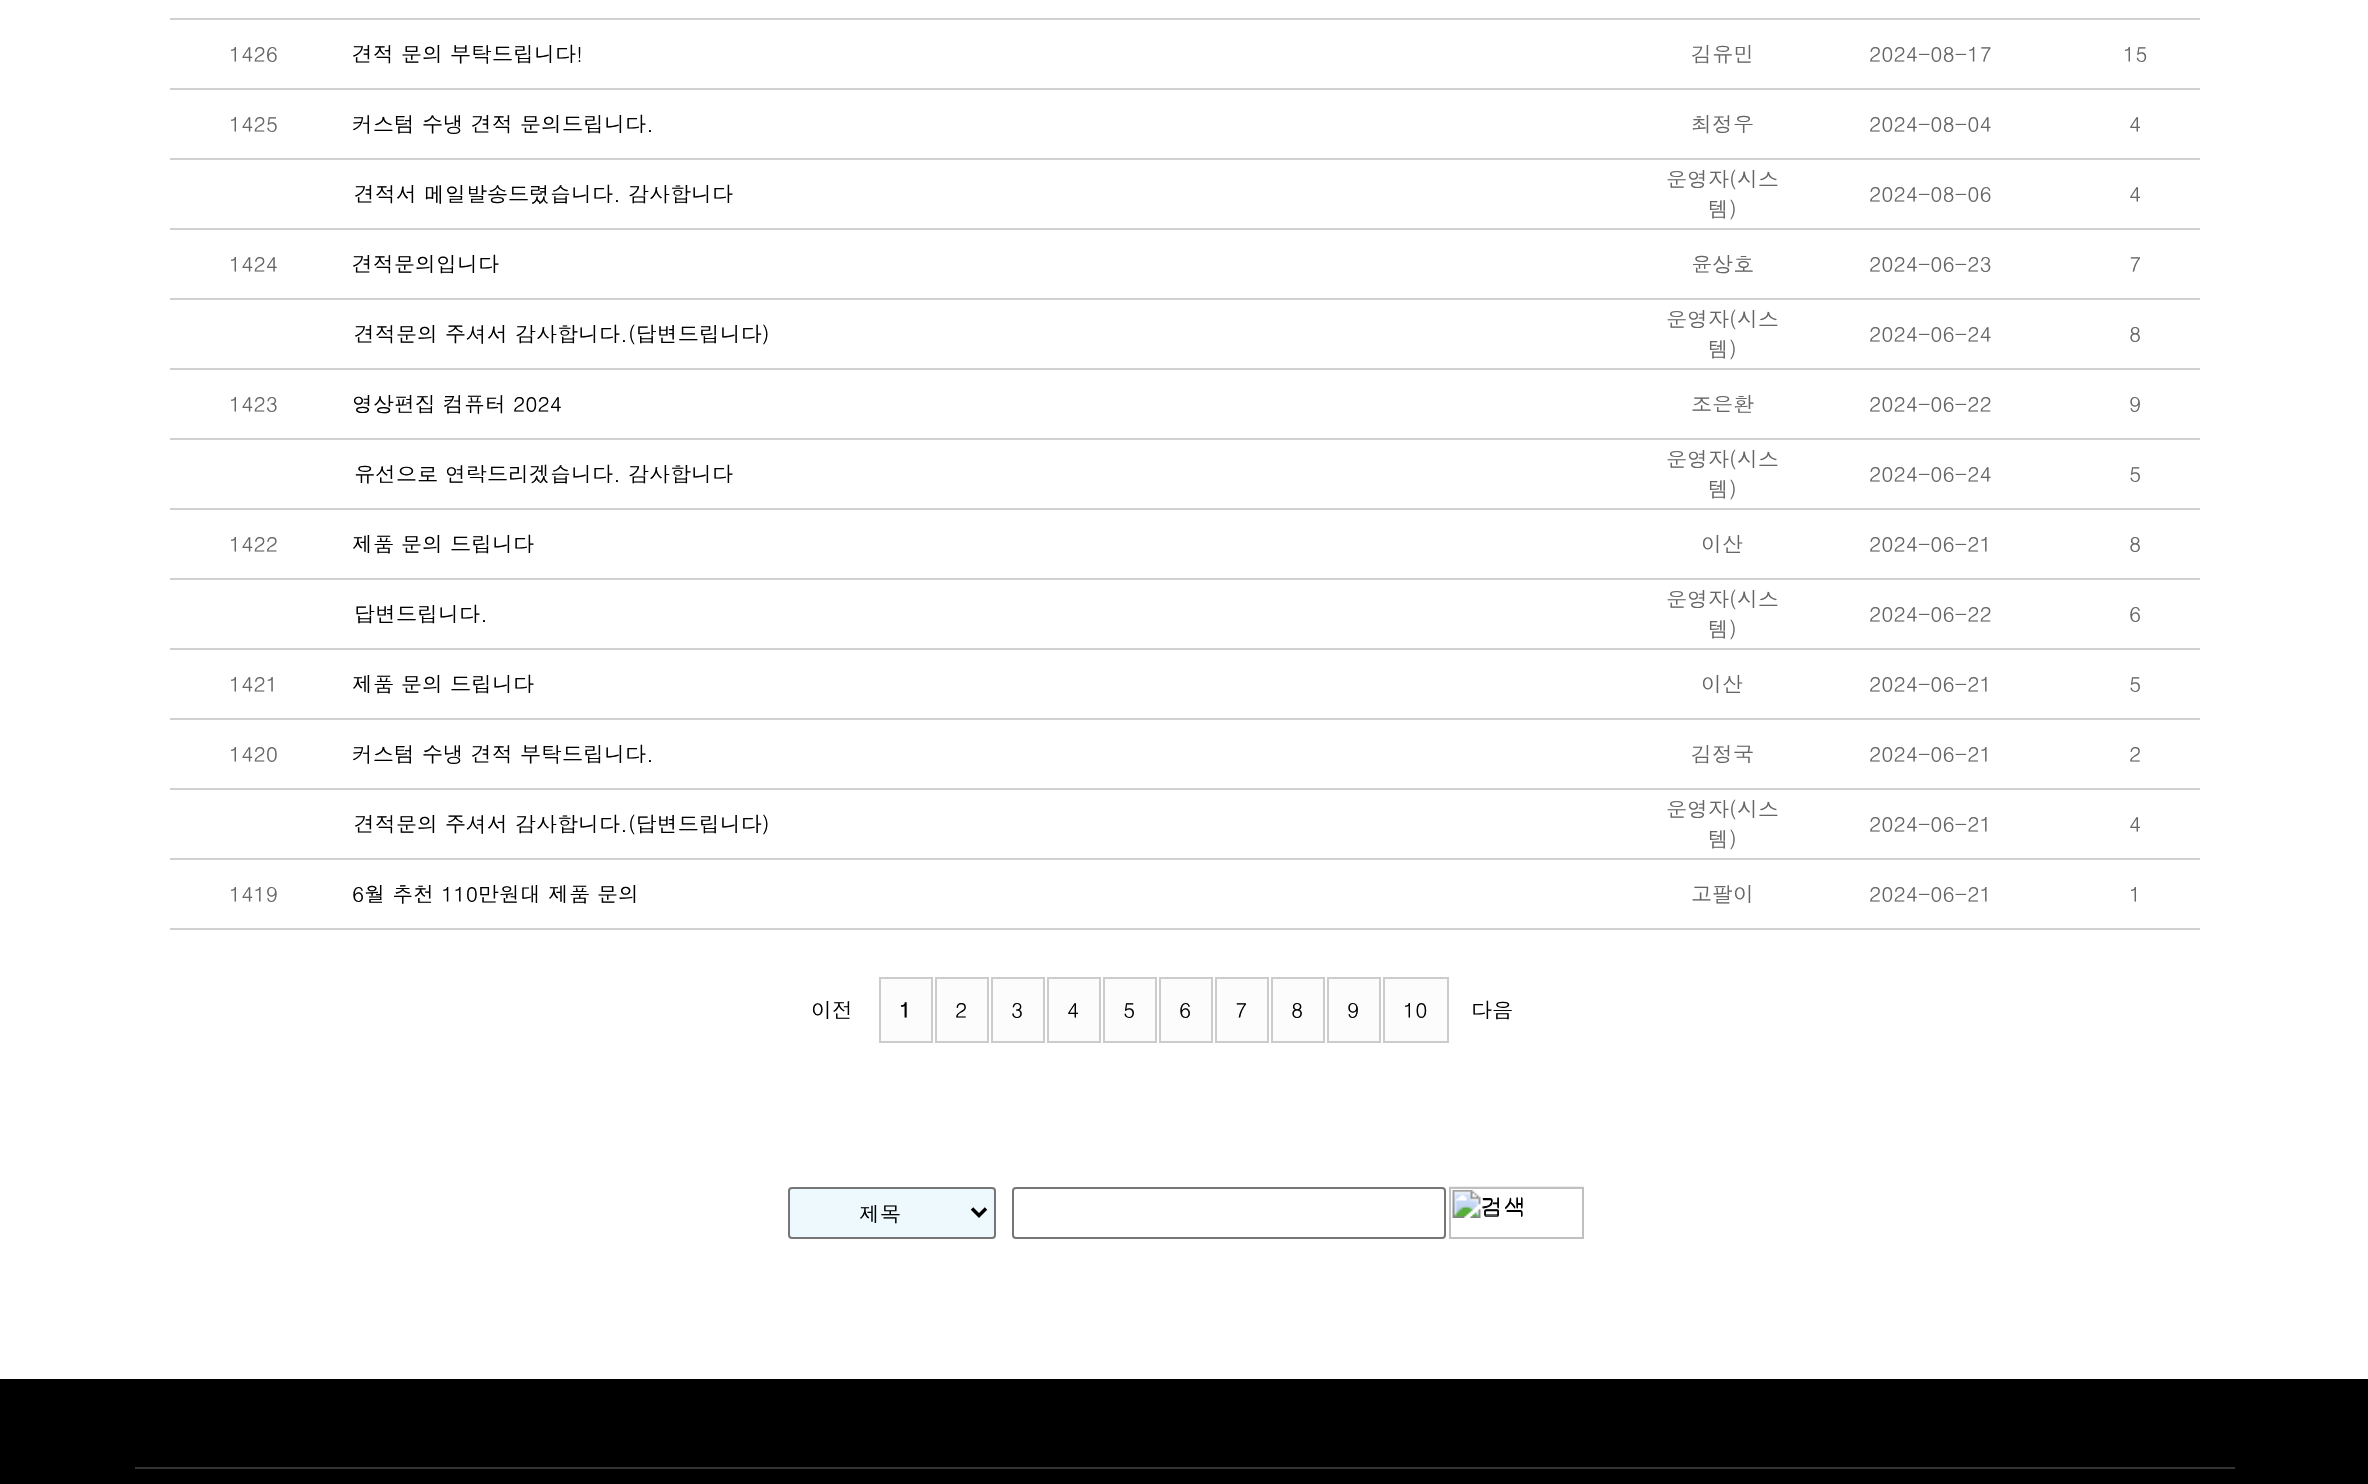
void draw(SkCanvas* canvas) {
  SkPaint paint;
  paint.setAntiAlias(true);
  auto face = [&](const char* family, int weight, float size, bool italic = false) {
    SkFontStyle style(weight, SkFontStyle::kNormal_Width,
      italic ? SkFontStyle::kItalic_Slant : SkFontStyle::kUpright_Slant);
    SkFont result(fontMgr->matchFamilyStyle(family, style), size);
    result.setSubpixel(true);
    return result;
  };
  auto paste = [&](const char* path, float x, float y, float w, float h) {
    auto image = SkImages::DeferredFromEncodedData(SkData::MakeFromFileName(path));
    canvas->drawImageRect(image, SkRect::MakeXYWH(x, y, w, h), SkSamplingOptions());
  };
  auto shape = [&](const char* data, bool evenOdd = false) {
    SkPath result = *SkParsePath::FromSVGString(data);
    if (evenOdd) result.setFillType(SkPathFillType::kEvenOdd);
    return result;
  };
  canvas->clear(0xffffffff);
  {
    const struct { float x, y, w, h; SkColor color; } items[] = {
      {170, 18, 2030, 2, 0xffd1d1d1},
      {170, 88, 2030, 2, 0xffd1d1d1},
      {170, 158, 2030, 2, 0xffd1d1d1},
      {170, 228, 2030, 2, 0xffd1d1d1},
      {170, 298, 2030, 2, 0xffd1d1d1},
      {170, 368, 2030, 2, 0xffd1d1d1},
      {170, 438, 2030, 2, 0xffd1d1d1},
      {170, 508, 2030, 2, 0xffd1d1d1},
      {170, 578, 2030, 2, 0xffd1d1d1},
      {170, 648, 2030, 2, 0xffd1d1d1},
      {170, 718, 2030, 2, 0xffd1d1d1},
      {170, 788, 2030, 2, 0xffd1d1d1},
      {170, 858, 2030, 2, 0xffd1d1d1},
      {170, 928, 2030, 2, 0xffd1d1d1},
    };
    for (auto [x, y, w, h, color] : items) {
      paint.setColor(color);
      canvas->drawRect(SkRect::MakeXYWH(x, y, w, h), paint);
    }
  }
  paint.setColor(0xfffcfcfc);
  canvas->drawRect(SkRect::MakeXYWH(880, 978, 52, 64), paint);
  paint.setStroke(true);
  paint.setStrokeWidth(2);
  paint.setColor(0xffcccccc);
  canvas->drawRect(SkRect::MakeXYWH(880, 978, 52, 64), paint);
  paint.setStroke(false);
  paint.setColor(0xfffcfcfc);
  canvas->drawRect(SkRect::MakeXYWH(936, 978, 52, 64), paint);
  paint.setStroke(true);
  paint.setColor(0xffcccccc);
  canvas->drawRect(SkRect::MakeXYWH(936, 978, 52, 64), paint);
  paint.setStroke(false);
  paint.setColor(0xfffcfcfc);
  canvas->drawRect(SkRect::MakeXYWH(992, 978, 52, 64), paint);
  paint.setStroke(true);
  paint.setColor(0xffcccccc);
  canvas->drawRect(SkRect::MakeXYWH(992, 978, 52, 64), paint);
  paint.setStroke(false);
  paint.setColor(0xfffcfcfc);
  canvas->drawRect(SkRect::MakeXYWH(1048, 978, 52, 64), paint);
  paint.setStroke(true);
  paint.setColor(0xffcccccc);
  canvas->drawRect(SkRect::MakeXYWH(1048, 978, 52, 64), paint);
  paint.setStroke(false);
  paint.setColor(0xfffcfcfc);
  canvas->drawRect(SkRect::MakeXYWH(1104, 978, 52, 64), paint);
  paint.setStroke(true);
  paint.setColor(0xffcccccc);
  canvas->drawRect(SkRect::MakeXYWH(1104, 978, 52, 64), paint);
  paint.setStroke(false);
  paint.setColor(0xfffcfcfc);
  canvas->drawRect(SkRect::MakeXYWH(1160, 978, 52, 64), paint);
  paint.setStroke(true);
  paint.setColor(0xffcccccc);
  canvas->drawRect(SkRect::MakeXYWH(1160, 978, 52, 64), paint);
  paint.setStroke(false);
  paint.setColor(0xfffcfcfc);
  canvas->drawRect(SkRect::MakeXYWH(1216, 978, 52, 64), paint);
  paint.setStroke(true);
  paint.setColor(0xffcccccc);
  canvas->drawRect(SkRect::MakeXYWH(1216, 978, 52, 64), paint);
  paint.setStroke(false);
  paint.setColor(0xfffcfcfc);
  canvas->drawRect(SkRect::MakeXYWH(1272, 978, 52, 64), paint);
  paint.setStroke(true);
  paint.setColor(0xffcccccc);
  canvas->drawRect(SkRect::MakeXYWH(1272, 978, 52, 64), paint);
  paint.setStroke(false);
  paint.setColor(0xfffcfcfc);
  canvas->drawRect(SkRect::MakeXYWH(1328, 978, 52, 64), paint);
  paint.setStroke(true);
  paint.setColor(0xffcccccc);
  canvas->drawRect(SkRect::MakeXYWH(1328, 978, 52, 64), paint);
  paint.setStroke(false);
  paint.setColor(0xfffcfcfc);
  canvas->drawRect(SkRect::MakeXYWH(1384, 978, 64, 64), paint);
  paint.setStroke(true);
  paint.setColor(0xffcccccc);
  canvas->drawRect(SkRect::MakeXYWH(1384, 978, 64, 64), paint);
  paint.setStroke(false);
  paint.setColor(0xffedf9fc);
  canvas->drawRoundRect(SkRect::MakeXYWH(789, 1188, 206, 50), 3, 3, paint);
  paint.setStroke(true);
  paint.setColor(0xff767676);
  canvas->drawRoundRect(SkRect::MakeXYWH(789, 1188, 206, 50), 3, 3, paint);
  paint.setStrokeWidth(3.5f);
  paint.setColor(0xff000000);
  canvas->drawPath(shape("M972 1208.5L979 1215.5L986 1208.5"), paint);
  paint.setStrokeWidth(2);
  paint.setColor(0xff767676);
  canvas->drawRoundRect(SkRect::MakeXYWH(1013, 1188, 432, 50), 3, 3, paint);
  paste("img/1.png", 1449, 1186, 135, 32);
  paint.setColor(0xffc0c0c0);
  canvas->drawRect(SkRect::MakeXYWH(1450, 1188, 133, 50), paint);
  paint.setStroke(false);
  paint.setColor(0xff000000);
  canvas->drawRect(SkRect::MakeXYWH(0, 1379, 2368, 105), paint);
  paint.setColor(0xff333333);
  canvas->drawRect(SkRect::MakeXYWH(135, 1467, 2100, 2), paint);
  auto f0 = face("Dotum", 400, 21);
  paint.setColor(0xff666666);
  canvas->drawString("1426", 229, 62, f0, paint);
  paint.setColor(0xff000000);
  canvas->drawString("견적 문의 부탁드립니다!", 352, 62, f0, paint);
  paint.setColor(0xff666666);
  {
    const struct { const char* s; float x, y; } items[] = {
      {"김유민", 1691, 62},
      {"2024-08-17", 1869, 62},
      {"15", 2123, 62},
      {"1425", 229, 132},
    };
    for (auto [s, x, y] : items) {
      canvas->drawString(s, x, y, f0, paint);
    }
  }
  paint.setColor(0xff000000);
  canvas->drawString("커스텀 수냉 견적 문의드립니다.", 352, 132, f0, paint);
  paint.setColor(0xff666666);
  {
    const struct { const char* s; float x, y; } items[] = {
      {"최정우", 1691, 132},
      {"2024-08-04", 1869, 132},
      {"4", 2129, 132},
    };
    for (auto [s, x, y] : items) {
      canvas->drawString(s, x, y, f0, paint);
    }
  }
  paint.setColor(0xff000000);
  canvas->drawString("견적서 메일발송드렸습니다. 감사합니다", 354, 202, f0, paint);
  paint.setColor(0xff666666);
  {
    const struct { const char* s; float x, y; } items[] = {
      {"운영자(시스", 1666, 187},
      {"템)", 1708, 217},
      {"2024-08-06", 1869, 202},
      {"4", 2129, 202},
      {"1424", 229, 272},
    };
    for (auto [s, x, y] : items) {
      canvas->drawString(s, x, y, f0, paint);
    }
  }
  paint.setColor(0xff000000);
  canvas->drawString("견적문의입니다", 352, 272, f0, paint);
  paint.setColor(0xff666666);
  {
    const struct { const char* s; float x, y; } items[] = {
      {"윤상호", 1691, 272},
      {"2024-06-23", 1869, 272},
      {"7", 2129, 272},
    };
    for (auto [s, x, y] : items) {
      canvas->drawString(s, x, y, f0, paint);
    }
  }
  paint.setColor(0xff000000);
  canvas->drawString("견적문의 주셔서 감사합니다.(답변드립니다)", 354, 342, f0, paint);
  paint.setColor(0xff666666);
  {
    const struct { const char* s; float x, y; } items[] = {
      {"운영자(시스", 1666, 327},
      {"템)", 1708, 357},
      {"2024-06-24", 1869, 342},
      {"8", 2129, 342},
      {"1423", 229, 412},
    };
    for (auto [s, x, y] : items) {
      canvas->drawString(s, x, y, f0, paint);
    }
  }
  paint.setColor(0xff000000);
  canvas->drawString("영상편집 컴퓨터 2024", 352, 412, f0, paint);
  paint.setColor(0xff666666);
  {
    const struct { const char* s; float x, y; } items[] = {
      {"조은환", 1691, 412},
      {"2024-06-22", 1869, 412},
      {"9", 2129, 412},
    };
    for (auto [s, x, y] : items) {
      canvas->drawString(s, x, y, f0, paint);
    }
  }
  paint.setColor(0xff000000);
  canvas->drawString("유선으로 연락드리겠습니다. 감사합니다", 354, 482, f0, paint);
  paint.setColor(0xff666666);
  {
    const struct { const char* s; float x, y; } items[] = {
      {"운영자(시스", 1666, 467},
      {"템)", 1708, 497},
      {"2024-06-24", 1869, 482},
      {"5", 2129, 482},
      {"1422", 229, 552},
    };
    for (auto [s, x, y] : items) {
      canvas->drawString(s, x, y, f0, paint);
    }
  }
  paint.setColor(0xff000000);
  canvas->drawString("제품 문의 드립니다", 352, 552, f0, paint);
  paint.setColor(0xff666666);
  {
    const struct { const char* s; float x, y; } items[] = {
      {"이산", 1701, 552},
      {"2024-06-21", 1869, 552},
      {"8", 2129, 552},
    };
    for (auto [s, x, y] : items) {
      canvas->drawString(s, x, y, f0, paint);
    }
  }
  paint.setColor(0xff000000);
  canvas->drawString("답변드립니다.", 354, 622, f0, paint);
  paint.setColor(0xff666666);
  {
    const struct { const char* s; float x, y; } items[] = {
      {"운영자(시스", 1666, 607},
      {"템)", 1708, 637},
      {"2024-06-22", 1869, 622},
      {"6", 2129, 622},
      {"1421", 229, 692},
    };
    for (auto [s, x, y] : items) {
      canvas->drawString(s, x, y, f0, paint);
    }
  }
  paint.setColor(0xff000000);
  canvas->drawString("제품 문의 드립니다", 352, 692, f0, paint);
  paint.setColor(0xff666666);
  {
    const struct { const char* s; float x, y; } items[] = {
      {"이산", 1701, 692},
      {"2024-06-21", 1869, 692},
      {"5", 2129, 692},
      {"1420", 229, 762},
    };
    for (auto [s, x, y] : items) {
      canvas->drawString(s, x, y, f0, paint);
    }
  }
  paint.setColor(0xff000000);
  canvas->drawString("커스텀 수냉 견적 부탁드립니다.", 352, 762, f0, paint);
  paint.setColor(0xff666666);
  {
    const struct { const char* s; float x, y; } items[] = {
      {"김정국", 1691, 762},
      {"2024-06-21", 1869, 762},
      {"2", 2129, 762},
    };
    for (auto [s, x, y] : items) {
      canvas->drawString(s, x, y, f0, paint);
    }
  }
  paint.setColor(0xff000000);
  canvas->drawString("견적문의 주셔서 감사합니다.(답변드립니다)", 354, 832, f0, paint);
  paint.setColor(0xff666666);
  {
    const struct { const char* s; float x, y; } items[] = {
      {"운영자(시스", 1666, 817},
      {"템)", 1708, 847},
      {"2024-06-21", 1869, 832},
      {"4", 2129, 832},
      {"1419", 229, 902},
    };
    for (auto [s, x, y] : items) {
      canvas->drawString(s, x, y, f0, paint);
    }
  }
  paint.setColor(0xff000000);
  canvas->drawString("6월 추천 110만원대 제품 문의", 352, 902, f0, paint);
  paint.setColor(0xff666666);
  {
    const struct { const char* s; float x, y; } items[] = {
      {"고팔이", 1691, 902},
      {"2024-06-21", 1869, 902},
      {"1", 2129, 902},
    };
    for (auto [s, x, y] : items) {
      canvas->drawString(s, x, y, f0, paint);
    }
  }
  paint.setColor(0xff000000);
  canvas->drawString("이전", 811, 1018, f0, paint);
  auto f1 = face("Dotum", 700, 21);
  canvas->drawString("1", 899, 1018, f1, paint);
  {
    const struct { const char* s; float x, y; } items[] = {
      {"2", 955, 1018},
      {"3", 1011, 1018},
      {"4", 1067, 1018},
      {"5", 1123, 1018},
      {"6", 1179, 1018},
      {"7", 1235, 1018},
      {"8", 1291, 1018},
      {"9", 1347, 1018},
      {"10", 1403, 1018},
      {"다음", 1471, 1018},
      {"제목", 859, 1222},
    };
    for (auto [s, x, y] : items) {
      canvas->drawString(s, x, y, f0, paint);
    }
  }
  auto f2 = face("Gulim", 400, 23);
  canvas->drawString("검색", 1480, 1215, f2, paint);
}
